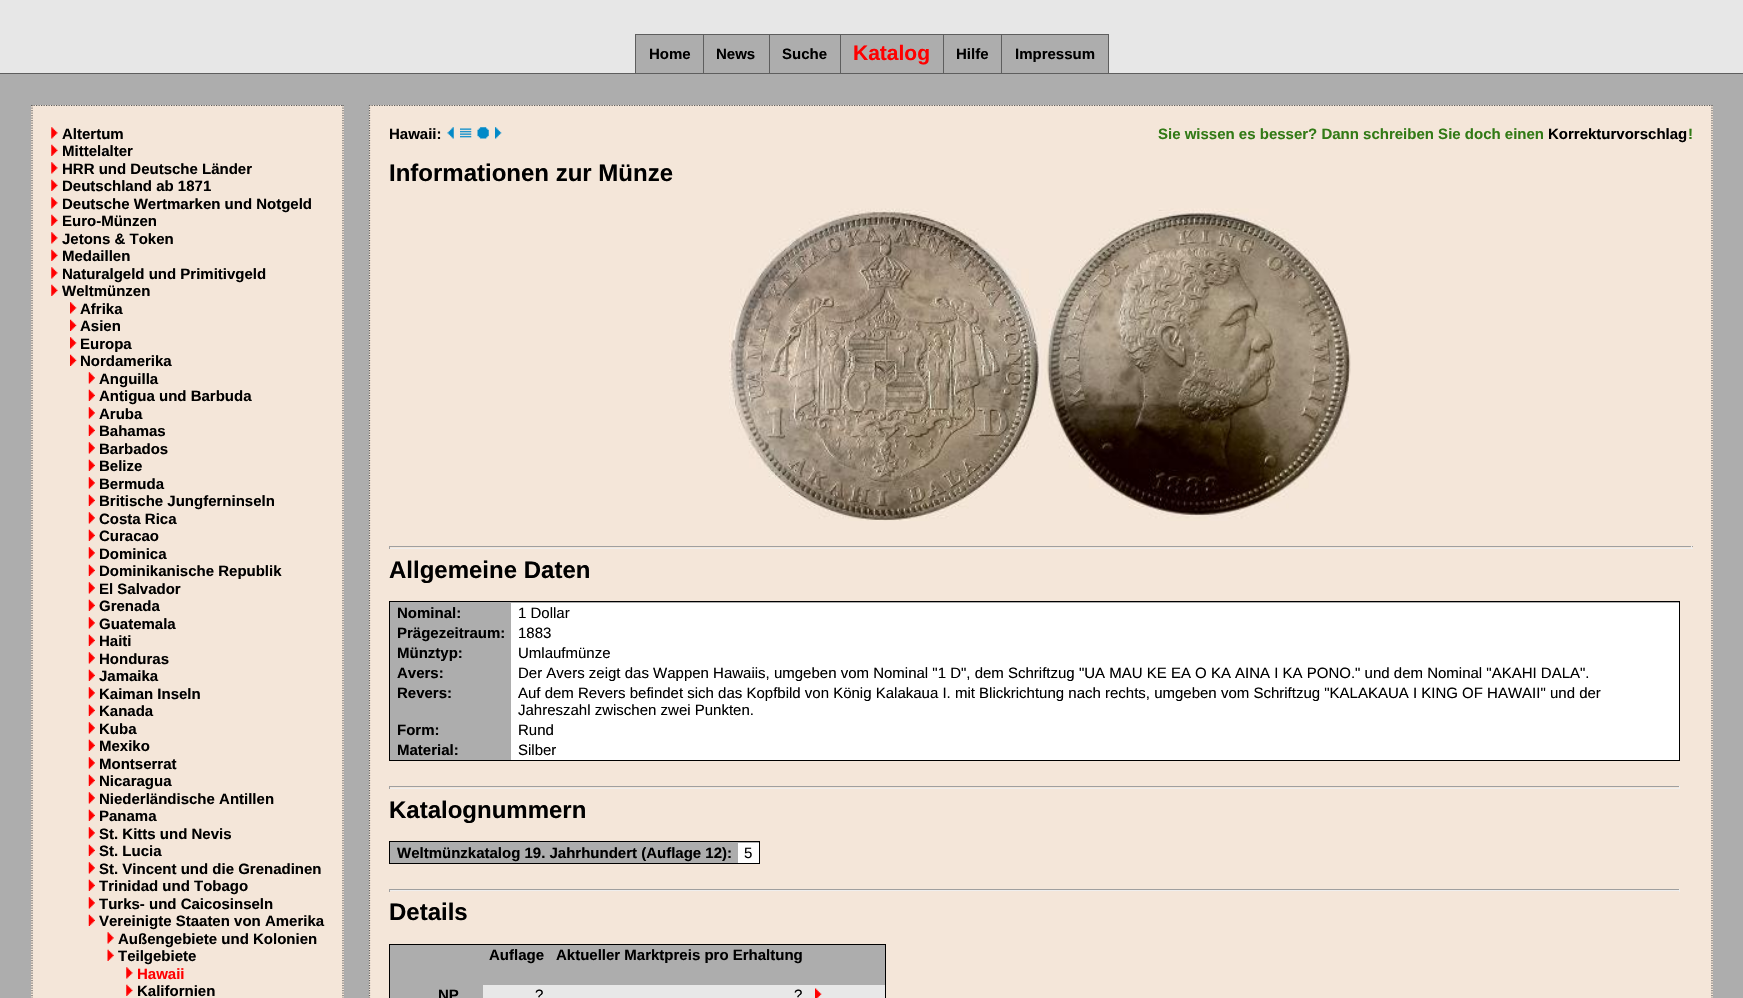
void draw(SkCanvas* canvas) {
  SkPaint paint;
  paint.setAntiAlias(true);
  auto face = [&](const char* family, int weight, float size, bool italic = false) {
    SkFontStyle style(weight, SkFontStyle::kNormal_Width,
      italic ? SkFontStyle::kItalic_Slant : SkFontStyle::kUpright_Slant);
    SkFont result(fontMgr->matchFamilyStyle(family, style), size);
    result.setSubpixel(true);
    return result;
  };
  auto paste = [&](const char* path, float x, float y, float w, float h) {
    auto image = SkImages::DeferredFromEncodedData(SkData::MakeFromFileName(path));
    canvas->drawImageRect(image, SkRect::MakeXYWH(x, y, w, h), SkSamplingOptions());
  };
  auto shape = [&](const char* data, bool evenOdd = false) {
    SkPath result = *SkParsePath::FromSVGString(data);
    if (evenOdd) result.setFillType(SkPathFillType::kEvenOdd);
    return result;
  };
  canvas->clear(0xffe7e7e7);
  {
    const struct { float x, y, w, h; SkColor color; } items[] = {
      {636, 35, 67, 38, 0xffadadad},
      {1001, 34, 108, 1, 0xff5e5e5e},
      {944, 35, 164, 38, 0xffadadad},
      {1001, 34, 1, 40, 0xff5e5e5e},
      {943, 34, 60, 1, 0xff5e5e5e},
      {943, 34, 1, 40, 0xff5e5e5e},
      {840, 34, 104, 1, 0xff5e5e5e},
      {840, 34, 1, 40, 0xff5e5e5e},
      {769, 34, 72, 1, 0xff5e5e5e},
      {769, 34, 1, 40, 0xff5e5e5e},
      {703, 34, 67, 1, 0xff5e5e5e},
      {703, 34, 1, 40, 0xff5e5e5e},
      {635, 34, 69, 1, 0xff5e5e5e},
      {635, 34, 1, 40, 0xff5e5e5e},
      {704, 35, 65, 38, 0xffadadad},
      {770, 35, 70, 38, 0xffadadad},
      {841, 35, 102, 38, 0xffadadad},
      {1108, 34, 1, 40, 0xff5e5e5e},
      {0, 74, 1743, 924, 0xffadadad},
      {0, 73, 1743, 1, 0xff5e5e5e},
      {31, 105, 313, 893, 0xfff4e6d9},
    };
    for (auto [x, y, w, h, color] : items) {
      paint.setColor(color);
      canvas->drawRect(SkRect::MakeXYWH(x, y, w, h), paint);
    }
  }
  paint.setStroke(true);
  paint.setStrokeWidth(1.2f);
  paint.setColor(0xff5e5e5e);
  paint.setPathEffect(SkDashPathEffect::Make({{1.25f, 1.25f}}, 0));
  canvas->drawPath(shape("M31 105.5H344"), paint);
  paint.setPathEffect(nullptr);
  paint.setPathEffect(SkDashPathEffect::Make({{1.25f, 1.25f}}, 0));
  canvas->drawPath(shape("M343 105V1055"), paint);
  paint.setPathEffect(nullptr);
  paint.setPathEffect(SkDashPathEffect::Make({{1.25f, 1.25f}}, 0));
  canvas->drawPath(shape("M32 105V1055"), paint);
  paint.setPathEffect(nullptr);
  paste("img/1.png", 51, 127, 7, 12);
  paste("img/2.png", 51, 144, 7, 12);
  paste("img/1.png", 51, 162, 7, 12);
  paste("img/2.png", 51, 179, 7, 12);
  paste("img/1.png", 51, 197, 7, 12);
  paste("img/2.png", 51, 214, 7, 12);
  paste("img/1.png", 51, 232, 7, 12);
  paste("img/2.png", 51, 249, 7, 12);
  paste("img/1.png", 51, 267, 7, 12);
  paste("img/3.png", 51, 284, 7, 12);
  paste("img/4.png", 70, 302, 7, 12);
  paste("img/5.png", 70, 319, 7, 12);
  paste("img/4.png", 70, 337, 7, 12);
  paste("img/5.png", 70, 354, 7, 12);
  paste("img/6.png", 88, 372, 7, 12);
  paste("img/7.png", 88, 389, 7, 12);
  paste("img/6.png", 88, 407, 7, 12);
  paste("img/7.png", 88, 424, 7, 12);
  paste("img/6.png", 88, 442, 7, 12);
  paste("img/7.png", 88, 459, 7, 12);
  paste("img/6.png", 88, 477, 7, 12);
  paste("img/7.png", 88, 494, 7, 12);
  paste("img/6.png", 88, 512, 7, 12);
  paste("img/7.png", 88, 529, 7, 12);
  paste("img/6.png", 88, 547, 7, 12);
  paste("img/7.png", 88, 564, 7, 12);
  paste("img/8.png", 88, 582, 7, 12);
  paste("img/7.png", 88, 599, 7, 12);
  paste("img/6.png", 88, 617, 7, 12);
  paste("img/7.png", 88, 634, 7, 12);
  paste("img/6.png", 88, 652, 7, 12);
  paste("img/7.png", 88, 669, 7, 12);
  paste("img/6.png", 88, 687, 7, 12);
  paste("img/7.png", 88, 704, 7, 12);
  paste("img/6.png", 88, 722, 7, 12);
  paste("img/7.png", 88, 739, 7, 12);
  paste("img/6.png", 88, 757, 7, 12);
  paste("img/9.png", 88, 774, 7, 12);
  paste("img/6.png", 88, 792, 7, 12);
  paste("img/7.png", 88, 809, 7, 12);
  paste("img/6.png", 88, 827, 7, 12);
  paste("img/7.png", 88, 844, 7, 12);
  paste("img/6.png", 88, 862, 7, 12);
  paste("img/7.png", 88, 879, 7, 12);
  paste("img/6.png", 88, 897, 7, 12);
  paste("img/7.png", 88, 914, 7, 12);
  paste("img/10.png", 107, 932, 7, 12);
  paste("img/11.png", 107, 949, 7, 12);
  paste("img/1.png", 126, 967, 7, 12);
  paste("img/2.png", 126, 984, 7, 12);
  paint.setStroke(false);
  paint.setColor(0xfff4e6d9);
  canvas->drawRect(SkRect::MakeXYWH(369, 105, 1344, 893), paint);
  paint.setStroke(true);
  paint.setColor(0xff5e5e5e);
  paint.setPathEffect(SkDashPathEffect::Make({{1.25f, 1.25f}}, 0));
  canvas->drawPath(shape("M369 105.5H1712.5"), paint);
  paint.setPathEffect(nullptr);
  paint.setPathEffect(SkDashPathEffect::Make({{1.25f, 1.25f}}, 0));
  canvas->drawPath(shape("M1712 105V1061"), paint);
  paint.setPathEffect(nullptr);
  paint.setPathEffect(SkDashPathEffect::Make({{1.25f, 1.25f}}, 0));
  canvas->drawPath(shape("M369.5 105V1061"), paint);
  paint.setPathEffect(nullptr);
  paste("img/12.png", 447, 127, 7, 12);
  paste("img/13.png", 460, 128, 12, 10);
  paste("img/14.png", 477, 127, 12, 12);
  paste("img/15.png", 495, 127, 7, 12);
  paste("img/16.png", 729, 208, 622, 313);
  paint.setStroke(false);
  {
    const struct { float x, y, w, h; SkColor color; } items[] = {
      {389, 546, 1304, 1, 0xff9f9f9f},
      {1691, 546, 1, 3, 0xffeeeeee},
      {389, 548, 1304, 1, 0xffeeeeee},
      {389, 546, 1, 3, 0xff9f9f9f},
    };
    for (auto [x, y, w, h, color] : items) {
      paint.setColor(color);
      canvas->drawRect(SkRect::MakeXYWH(x, y, w, h), paint);
    }
  }
  paint.setColor(0xffadadad);
  canvas->drawRect(SkRect::MakeXYWH(389.5f, 601.5f, 1290, 159), paint);
  paint.setStroke(true);
  paint.setStrokeWidth(1);
  paint.setColor(0xff000000);
  canvas->drawRect(SkRect::MakeXYWH(389.5f, 601.5f, 1290, 159), paint);
  paint.setStroke(false);
  {
    const struct { float x, y, w, h; SkColor color; } items[] = {
      {511, 603, 1168, 157, 0xffffffff},
      {389, 786, 1291, 1, 0xff9f9f9f},
      {1679, 786, 1, 3, 0xffeeeeee},
      {389, 788, 1291, 1, 0xffeeeeee},
      {389, 786, 1, 3, 0xff9f9f9f},
    };
    for (auto [x, y, w, h, color] : items) {
      paint.setColor(color);
      canvas->drawRect(SkRect::MakeXYWH(x, y, w, h), paint);
    }
  }
  paint.setColor(0xffadadad);
  canvas->drawRect(SkRect::MakeXYWH(389.5f, 841.5f, 370, 22), paint);
  paint.setStroke(true);
  paint.setColor(0xff000000);
  canvas->drawRect(SkRect::MakeXYWH(389.5f, 841.5f, 370, 22), paint);
  paint.setStroke(false);
  {
    const struct { float x, y, w, h; SkColor color; } items[] = {
      {738, 843, 21, 20, 0xffffffff},
      {389, 889, 1291, 1, 0xff9f9f9f},
      {1679, 889, 1, 3, 0xffeeeeee},
      {389, 890, 1291, 1, 0xffeeeeee},
      {389, 889, 1, 3, 0xff9f9f9f},
    };
    for (auto [x, y, w, h, color] : items) {
      paint.setColor(color);
      canvas->drawRect(SkRect::MakeXYWH(x, y, w, h), paint);
    }
  }
  paint.setColor(0xffadadad);
  canvas->drawRect(SkRect::MakeXYWH(389.5f, 944.5f, 496, 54), paint);
  paint.setStroke(true);
  paint.setColor(0xff000000);
  canvas->drawRect(SkRect::MakeXYWH(389.5f, 944.5f, 496, 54), paint);
  paint.setStroke(false);
  paint.setColor(0xffe8e8e8);
  canvas->drawRect(SkRect::MakeXYWH(483, 985, 402, 13), paint);
  paste("img/17.png", 815, 988, 7, 10);
  auto f0 = face("Liberation Sans", 700, 15);
  paint.setColor(0xff000000);
  {
    const struct { const char* s; float x, y; } items[] = {
      {"Home", 649, 59},
      {"News", 716, 59},
      {"Suche", 782, 59},
    };
    for (auto [s, x, y] : items) {
      canvas->drawString(s, x, y, f0, paint);
    }
  }
  auto f1 = face("Liberation Sans", 700, 21);
  paint.setColor(0xffff0000);
  canvas->drawString("Katalog", 853, 60, f1, paint);
  paint.setColor(0xff000000);
  {
    const struct { const char* s; float x, y; } items[] = {
      {"Hilfe", 956, 59},
      {"Impressum", 1015, 59},
      {"Altertum", 62, 139},
      {"Mittelalter", 62, 156},
      {"HRR und Deutsche Länder", 62, 174},
      {"Deutschland ab 1871", 62, 191},
      {"Deutsche Wertmarken und Notgeld", 62, 209},
      {"Euro-Münzen", 62, 226},
      {"Jetons & Token", 62, 244},
      {"Medaillen", 62, 261},
      {"Naturalgeld und Primitivgeld", 62, 279},
      {"Weltmünzen", 62, 296},
      {"Afrika", 80, 314},
      {"Asien", 80, 331},
      {"Europa", 80, 349},
      {"Nordamerika", 80, 366},
      {"Anguilla", 99, 384},
      {"Antigua und Barbuda", 99, 401},
      {"Aruba", 99, 419},
      {"Bahamas", 99, 436},
      {"Barbados", 99, 454},
      {"Belize", 99, 471},
      {"Bermuda", 99, 489},
      {"Britische Jungferninseln", 99, 506},
      {"Costa Rica", 99, 524},
      {"Curacao", 99, 541},
      {"Dominica", 99, 559},
      {"Dominikanische Republik", 99, 576},
      {"El Salvador", 99, 594},
      {"Grenada", 99, 611},
      {"Guatemala", 99, 629},
      {"Haiti", 99, 646},
      {"Honduras", 99, 664},
      {"Jamaika", 99, 681},
      {"Kaiman Inseln", 99, 699},
      {"Kanada", 99, 716},
      {"Kuba", 99, 734},
      {"Mexiko", 99, 751},
      {"Montserrat", 99, 769},
      {"Nicaragua", 99, 786},
      {"Niederländische Antillen", 99, 804},
      {"Panama", 99, 821},
      {"St. Kitts und Nevis", 99, 839},
      {"St. Lucia", 99, 856},
      {"St. Vincent und die Grenadinen", 99, 874},
      {"Trinidad und Tobago", 99, 891},
      {"Turks- und Caicosinseln", 99, 909},
      {"Vereinigte Staaten von Amerika", 99, 926},
      {"Außengebiete und Kolonien", 118, 944},
      {"Teilgebiete", 118, 961},
    };
    for (auto [s, x, y] : items) {
      canvas->drawString(s, x, y, f0, paint);
    }
  }
  paint.setColor(0xffff0000);
  canvas->drawString("Hawaii", 137, 979, f0, paint);
  paint.setColor(0xff000000);
  canvas->drawString("Kalifornien", 137, 996, f0, paint);
  canvas->drawString("Hawaii:", 389, 139, f0, paint);
  paint.setColor(0xff327a16);
  canvas->drawString("Sie wissen es besser? Dann schreiben Sie doch einen", 1158, 139, f0, paint);
  paint.setColor(0xff000000);
  canvas->drawString("Korrekturvorschlag", 1548, 139, f0, paint);
  paint.setColor(0xff327a16);
  canvas->drawString("!", 1688, 139, f0, paint);
  auto f2 = face("Liberation Sans", 700, 24);
  paint.setColor(0xff000000);
  canvas->drawString("Informationen zur Münze", 389, 181, f2, paint);
  canvas->drawString("Allgemeine Daten", 389, 578, f2, paint);
  canvas->drawString("Nominal:", 397, 618, f0, paint);
  auto f3 = face("Liberation Sans", 400, 15);
  canvas->drawString("1 Dollar", 518, 618, f3, paint);
  canvas->drawString("Prägezeitraum:", 397, 638, f0, paint);
  canvas->drawString("1883", 518, 638, f3, paint);
  canvas->drawString("Münztyp:", 397, 658, f0, paint);
  canvas->drawString("Umlaufmünze", 518, 658, f3, paint);
  canvas->drawString("Avers:", 397, 678, f0, paint);
  canvas->drawString("Der Avers zeigt das Wappen Hawaiis, umgeben vom Nominal \"1 D\", dem Schriftzug \"UA MAU KE EA O KA AINA I KA PONO.\" und dem Nominal \"AKAHI DALA\".", 518, 678, f3, paint);
  canvas->drawString("Revers:", 397, 698, f0, paint);
  canvas->drawString("Auf dem Revers befindet sich das Kopfbild von König Kalakaua I. mit Blickrichtung nach rechts, umgeben vom Schriftzug \"KALAKAUA I KING OF HAWAII\" und der", 518, 698, f3, paint);
  canvas->drawString("Jahreszahl zwischen zwei Punkten.", 518, 715, f3, paint);
  canvas->drawString("Form:", 397, 735, f0, paint);
  canvas->drawString("Rund", 518, 735, f3, paint);
  canvas->drawString("Material:", 397, 755, f0, paint);
  canvas->drawString("Silber", 518, 755, f3, paint);
  canvas->drawString("Katalognummern", 389, 818, f2, paint);
  canvas->drawString("Weltmünzkatalog 19. Jahrhundert (Auflage 12):", 397, 858, f0, paint);
  canvas->drawString("5", 744, 858, f3, paint);
  canvas->drawString("Details", 389, 920, f2, paint);
  {
    const struct { const char* s; float x, y; } items[] = {
      {"Auflage", 489, 960},
      {"Aktueller Marktpreis pro Erhaltung", 556, 960},
      {"NP", 438, 1000},
    };
    for (auto [s, x, y] : items) {
      canvas->drawString(s, x, y, f0, paint);
    }
  }
  canvas->drawString("?", 535, 1000, f3, paint);
  canvas->drawString("?", 794, 1000, f3, paint);
}
